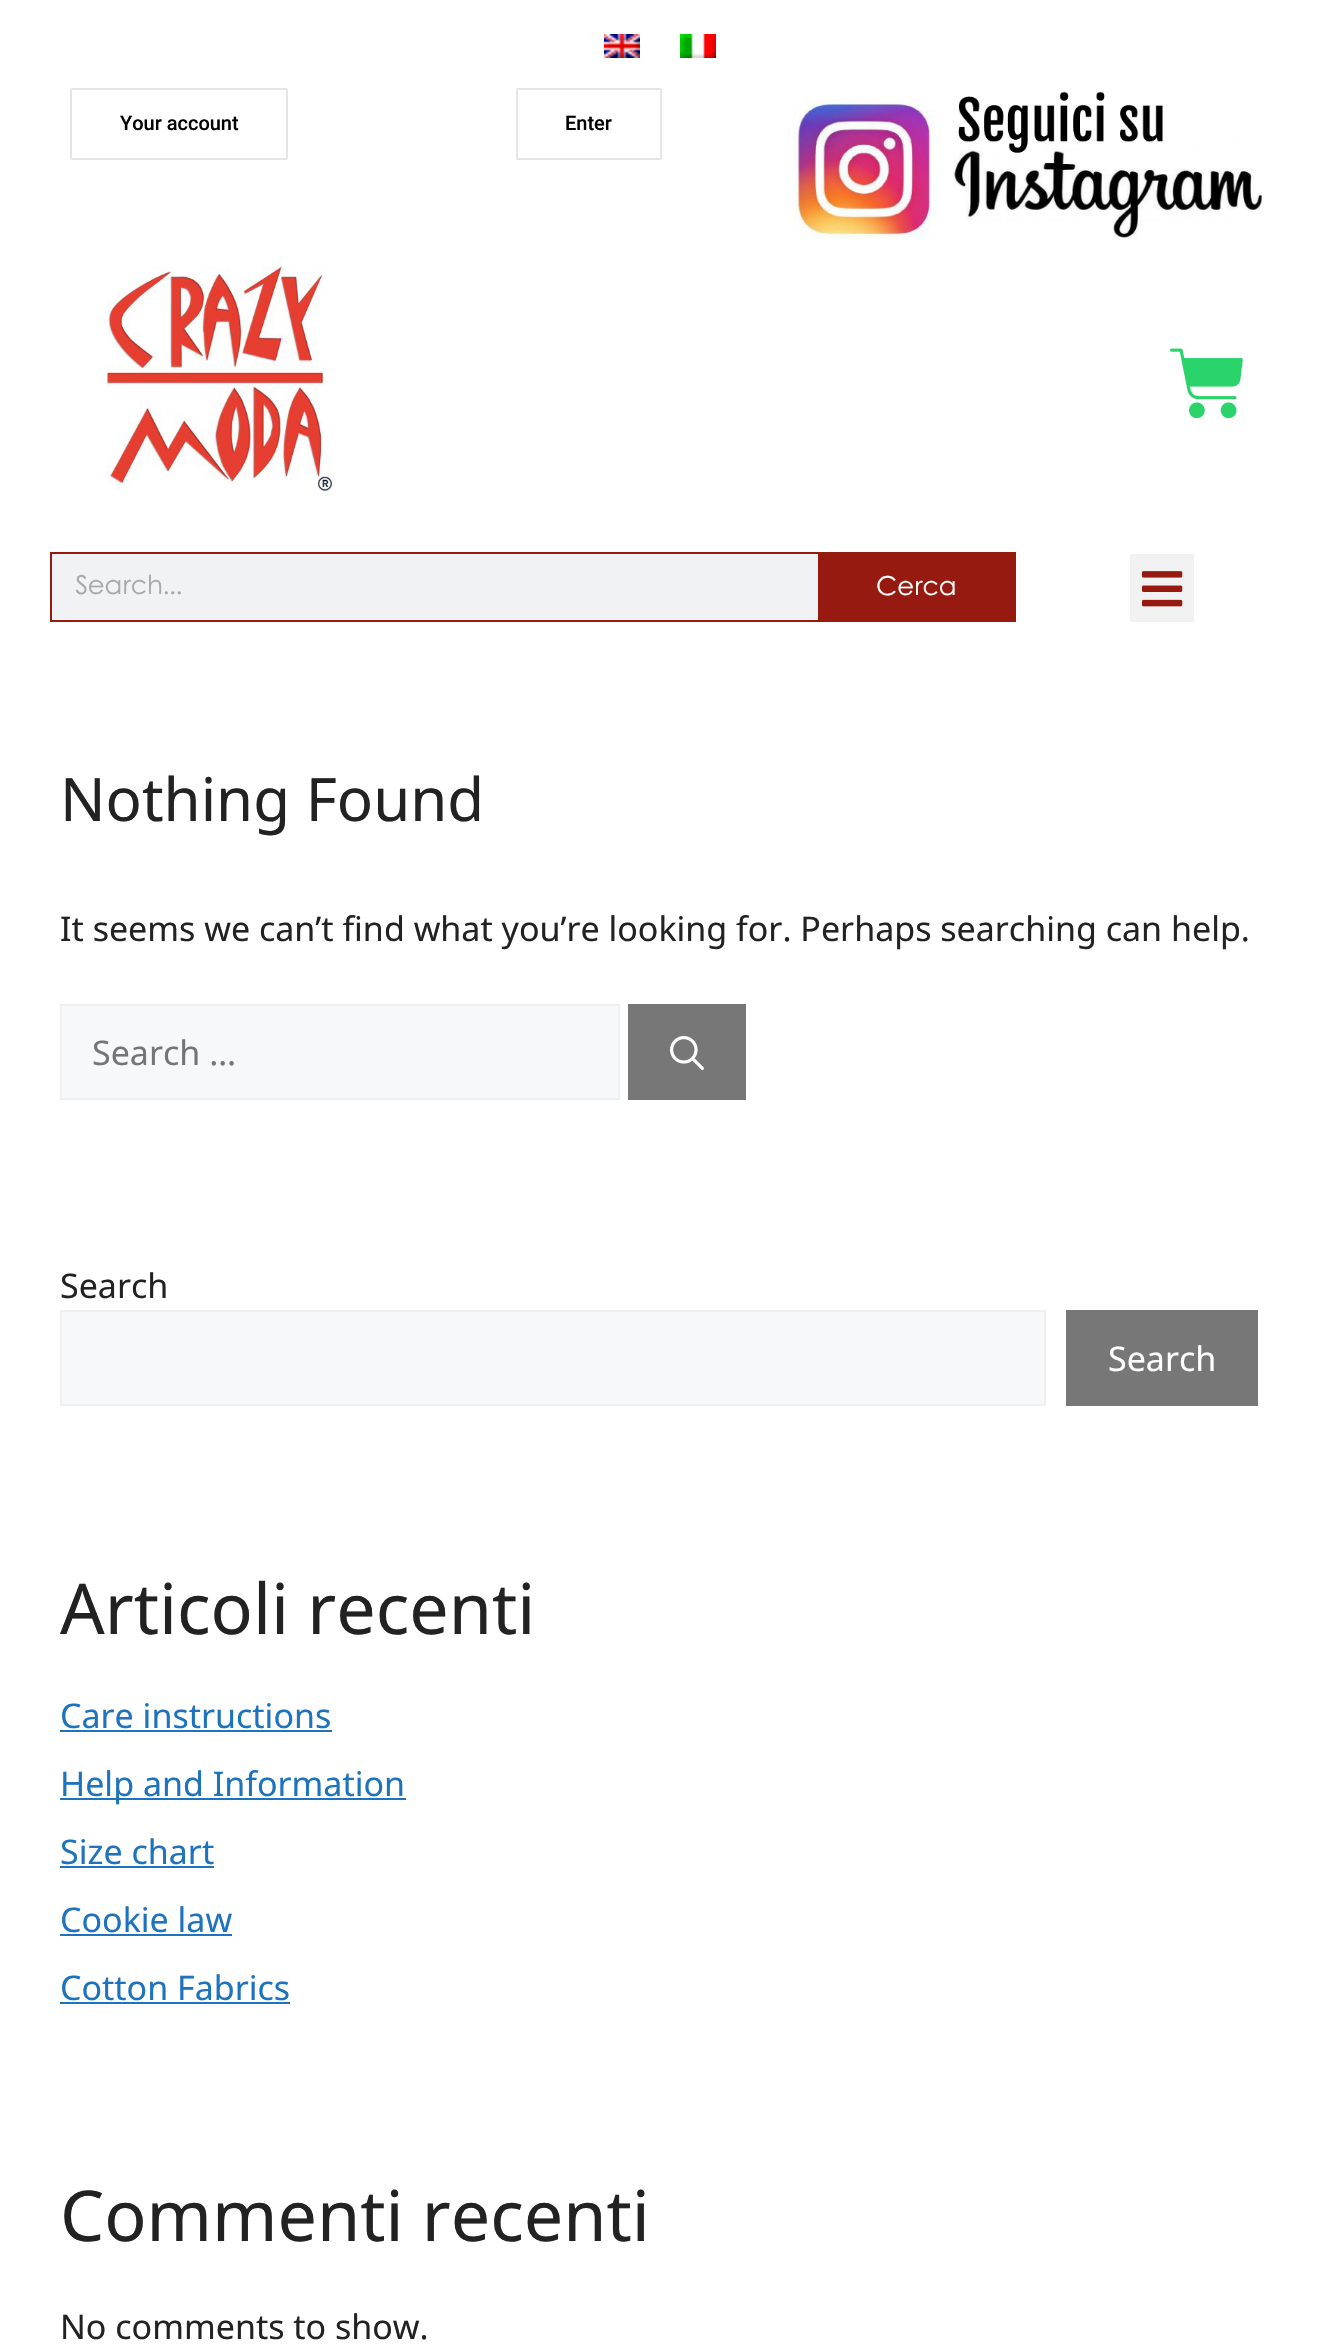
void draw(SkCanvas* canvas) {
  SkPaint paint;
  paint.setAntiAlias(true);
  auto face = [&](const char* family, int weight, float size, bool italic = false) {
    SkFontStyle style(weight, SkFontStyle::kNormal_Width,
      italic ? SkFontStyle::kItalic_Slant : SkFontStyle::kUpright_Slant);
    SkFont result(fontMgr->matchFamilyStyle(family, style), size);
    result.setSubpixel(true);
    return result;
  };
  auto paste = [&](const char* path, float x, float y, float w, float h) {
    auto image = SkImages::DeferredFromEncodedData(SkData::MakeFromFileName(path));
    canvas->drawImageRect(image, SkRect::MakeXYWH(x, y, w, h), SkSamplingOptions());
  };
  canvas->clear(0xffffffff);
  paste("img/1.png", 604, 34, 36, 24);
  paste("img/2.png", 680, 34, 36, 24);
  paint.setStroke(true);
  paint.setStrokeWidth(2);
  paint.setColor(0xffe5e5e5);
  canvas->drawRoundRect(SkRect::MakeXYWH(71, 89, 216, 70), 1, 1, paint);
  canvas->drawRoundRect(SkRect::MakeXYWH(517, 89, 144, 70), 1, 1, paint);
  paste("img/3.png", 793, 91, 470, 149);
  paste("img/4.png", 106, 266, 226, 225);
  paste("img/5.png", 1170, 348, 73, 71);
  paint.setStroke(false);
  paint.setColor(0xfff1f2f3);
  canvas->drawRect(SkRect::MakeXYWH(52, 554, 766, 66), paint);
  paint.setStroke(true);
  paint.setColor(0xff961a10);
  canvas->drawRect(SkRect::MakeXYWH(51, 553, 964, 68), paint);
  paint.setStroke(false);
  canvas->drawRect(SkRect::MakeXYWH(818, 554, 196, 66), paint);
  paint.setColor(0xfff2f2f2);
  canvas->drawRect(SkRect::MakeXYWH(1130, 554, 64, 68), paint);
  paste("img/6.png", 1142, 571, 41, 36);
  paint.setColor(0xfff7f8f9);
  canvas->drawRect(SkRect::MakeXYWH(61, 1005, 558, 94), paint);
  paint.setStroke(true);
  paint.setColor(0xfff0f0f0);
  canvas->drawRect(SkRect::MakeXYWH(61, 1005, 558, 94), paint);
  paint.setStroke(false);
  paint.setColor(0xff777777);
  canvas->drawRect(SkRect::MakeXYWH(628, 1004, 118, 96), paint);
  paste("img/7.png", 670, 1036, 34, 34);
  paint.setColor(0xfff7f8f9);
  canvas->drawRect(SkRect::MakeXYWH(61, 1311, 984, 94), paint);
  paint.setStroke(true);
  paint.setColor(0xfff0f0f0);
  canvas->drawRect(SkRect::MakeXYWH(61, 1311, 984, 94), paint);
  paint.setStroke(false);
  {
    const struct { float x, y, w, h; SkColor color; } items[] = {
      {1066, 1310, 192, 96, 0xff777777},
      {60, 1730, 272, 2, 0xff1e73be},
      {60, 1798, 346, 2, 0xff1e73be},
      {60, 1866, 154, 2, 0xff1e73be},
      {60, 1934, 172, 2, 0xff1e73be},
      {60, 2002, 230, 2, 0xff1e73be},
    };
    for (auto [x, y, w, h, color] : items) {
      paint.setColor(color);
      canvas->drawRect(SkRect::MakeXYWH(x, y, w, h), paint);
    }
  }
  auto f0 = face("Roboto", 500, 20);
  paint.setColor(0xff000000);
  canvas->drawString("Your account", 120, 130, f0, paint);
  canvas->drawString("Enter", 565, 130, f0, paint);
  auto f1 = face("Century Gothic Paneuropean", 400, 26);
  paint.setColor(0xffa8a8a9);
  canvas->drawString("Search...", 75, 594, f1, paint);
  paint.setColor(0xffffffff);
  canvas->drawString("Cerca", 876, 595, f1, paint);
  auto f2 = face("Noto Sans", 400, 60);
  paint.setColor(0xff222222);
  canvas->drawString("Nothing Found", 60, 821, f2, paint);
  auto f3 = face("Noto Sans", 400, 34);
  canvas->drawString("It seems we can’t find what you’re looking for. Perhaps searching can help.", 60, 941, f3, paint);
  paint.setColor(0xff757575);
  canvas->drawString("Search …", 92, 1065, f3, paint);
  paint.setColor(0xff222222);
  canvas->drawString("Search", 60, 1298, f3, paint);
  paint.setColor(0xffffffff);
  canvas->drawString("Search", 1108, 1371, f3, paint);
  auto f4 = face("Noto Sans", 400, 70);
  paint.setColor(0xff222222);
  canvas->drawString("Articoli recenti", 60, 1634, f4, paint);
  paint.setColor(0xff1e73be);
  {
    const struct { const char* s; float x, y; } items[] = {
      {"Care instructions", 60, 1728},
      {"Help and Information", 60, 1796},
      {"Size chart", 60, 1864},
      {"Cookie law", 60, 1932},
      {"Cotton Fabrics", 60, 2000},
    };
    for (auto [s, x, y] : items) {
      canvas->drawString(s, x, y, f3, paint);
    }
  }
  paint.setColor(0xff222222);
  canvas->drawString("Commenti recenti", 60, 2241, f4, paint);
  canvas->drawString("No comments to show.", 60, 2339, f3, paint);
}
